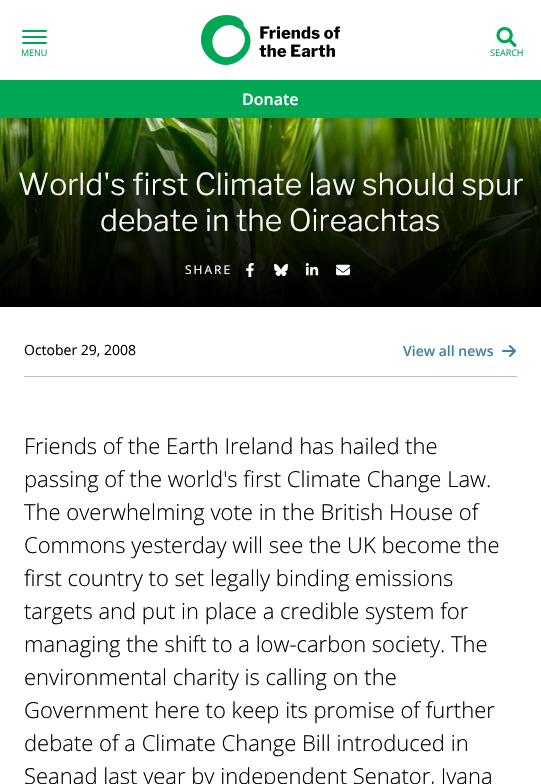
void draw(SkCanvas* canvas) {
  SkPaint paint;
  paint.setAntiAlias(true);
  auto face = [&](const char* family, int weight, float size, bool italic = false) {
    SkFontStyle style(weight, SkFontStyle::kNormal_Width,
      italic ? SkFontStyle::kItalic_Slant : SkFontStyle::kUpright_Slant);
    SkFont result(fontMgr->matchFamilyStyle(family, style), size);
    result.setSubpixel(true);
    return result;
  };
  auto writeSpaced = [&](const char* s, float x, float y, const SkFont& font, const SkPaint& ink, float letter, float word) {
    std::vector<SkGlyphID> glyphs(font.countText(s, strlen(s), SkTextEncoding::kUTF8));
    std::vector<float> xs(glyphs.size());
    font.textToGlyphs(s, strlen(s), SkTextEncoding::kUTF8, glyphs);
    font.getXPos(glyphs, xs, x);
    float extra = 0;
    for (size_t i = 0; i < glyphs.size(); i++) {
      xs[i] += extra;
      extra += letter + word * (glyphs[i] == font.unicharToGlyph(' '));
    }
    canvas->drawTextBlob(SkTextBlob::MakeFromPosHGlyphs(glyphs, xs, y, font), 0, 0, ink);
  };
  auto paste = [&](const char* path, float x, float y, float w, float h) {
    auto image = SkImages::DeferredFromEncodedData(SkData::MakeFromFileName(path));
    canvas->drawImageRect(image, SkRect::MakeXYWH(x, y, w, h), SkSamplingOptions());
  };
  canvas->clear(0xffffffff);
  paste("img/3.png", 0, 118, 541, 189);
  canvas->save();
  canvas->clipRect(SkRect::MakeXYWH(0, 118, 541, 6));
  paint.setColor(0x1a000000);
  paint.setMaskFilter(SkMaskFilter::MakeBlur(kNormal_SkBlurStyle, 4));
  canvas->drawRect(SkRect::MakeXYWH(0, 3, 541, 118), paint);
  paint.setMaskFilter(nullptr);
  canvas->restore();
  paint.setColor(0xff00a755);
  canvas->drawRoundRect(SkRect::MakeXYWH(22, 30, 25, 2), 1, 1, paint);
  canvas->drawRoundRect(SkRect::MakeXYWH(22, 36, 25, 2), 1, 1, paint);
  canvas->drawRoundRect(SkRect::MakeXYWH(22, 42, 25, 2), 1, 1, paint);
  paste("img/1.png", 201, 15, 139, 50);
  paste("img/2.png", 496, 27, 21, 20);
  canvas->drawRect(SkRect::MakeXYWH(0, 80, 541, 38), paint);
  paste("img/4.png", 246, 263, 8, 14);
  paste("img/5.png", 274, 263, 14, 14);
  paste("img/6.png", 305, 263, 14, 13);
  paste("img/7.png", 336, 264, 14, 12);
  paste("img/8.png", 502, 345, 14, 12);
  paint.setColor(0xffbfbfbf);
  canvas->drawRect(SkRect::MakeXYWH(24, 376, 493, 1), paint);
  auto f0 = face("Open Sans", 400, 9);
  paint.setColor(0xff00a755);
  canvas->drawString("MENU", 21, 56, f0, paint);
  canvas->drawString("SEARCH", 490, 56, f0, paint);
  auto f1 = face("Open Sans", 600, 16);
  paint.setColor(0xffffffff);
  canvas->drawString("Donate", 242, 105, f1, paint);
  auto f2 = face("Libre Franklin", 300, 30.1f);
  canvas->drawString("World's first Climate law should spur", 18, 195, f2, paint);
  canvas->drawString("debate in the Oireachtas", 100, 231, f2, paint);
  auto f3 = face("Open Sans", 400, 12);
  writeSpaced("SHARE", 185, 274, f3, paint, 2, 0);
  auto f4 = face("Open Sans", 400, 14);
  paint.setColor(0xff000000);
  canvas->drawString("October 29, 2008", 24, 355, f4, paint);
  auto f5 = face("Open Sans", 600, 14);
  paint.setColor(0xff4281a4);
  canvas->drawString("View all news", 403, 356, f5, paint);
  auto f6 = face("Open Sans", 300, 22);
  paint.setColor(0xff000000);
  {
    const struct { const char* s; float x, y; } items[] = {
      {"Friends of the Earth Ireland has hailed the", 24, 454},
      {"passing of the world's first Climate Change Law.", 24, 487},
      {"The overwhelming vote in the British House of", 24, 520},
      {"Commons yesterday will see the UK become the", 24, 553},
      {"first country to set legally binding emissions", 24, 586},
      {"targets and put in place a credible system for", 24, 619},
      {"managing the shift to a low-carbon society. The", 24, 652},
      {"environmental charity is calling on the", 24, 685},
      {"Government here to keep its promise of further", 24, 718},
      {"debate of a Climate Change Bill introduced in", 24, 751},
      {"Seanad last year by independent Senator, Ivana", 24, 784},
    };
    for (auto [s, x, y] : items) {
      canvas->drawString(s, x, y, f6, paint);
    }
  }
}
